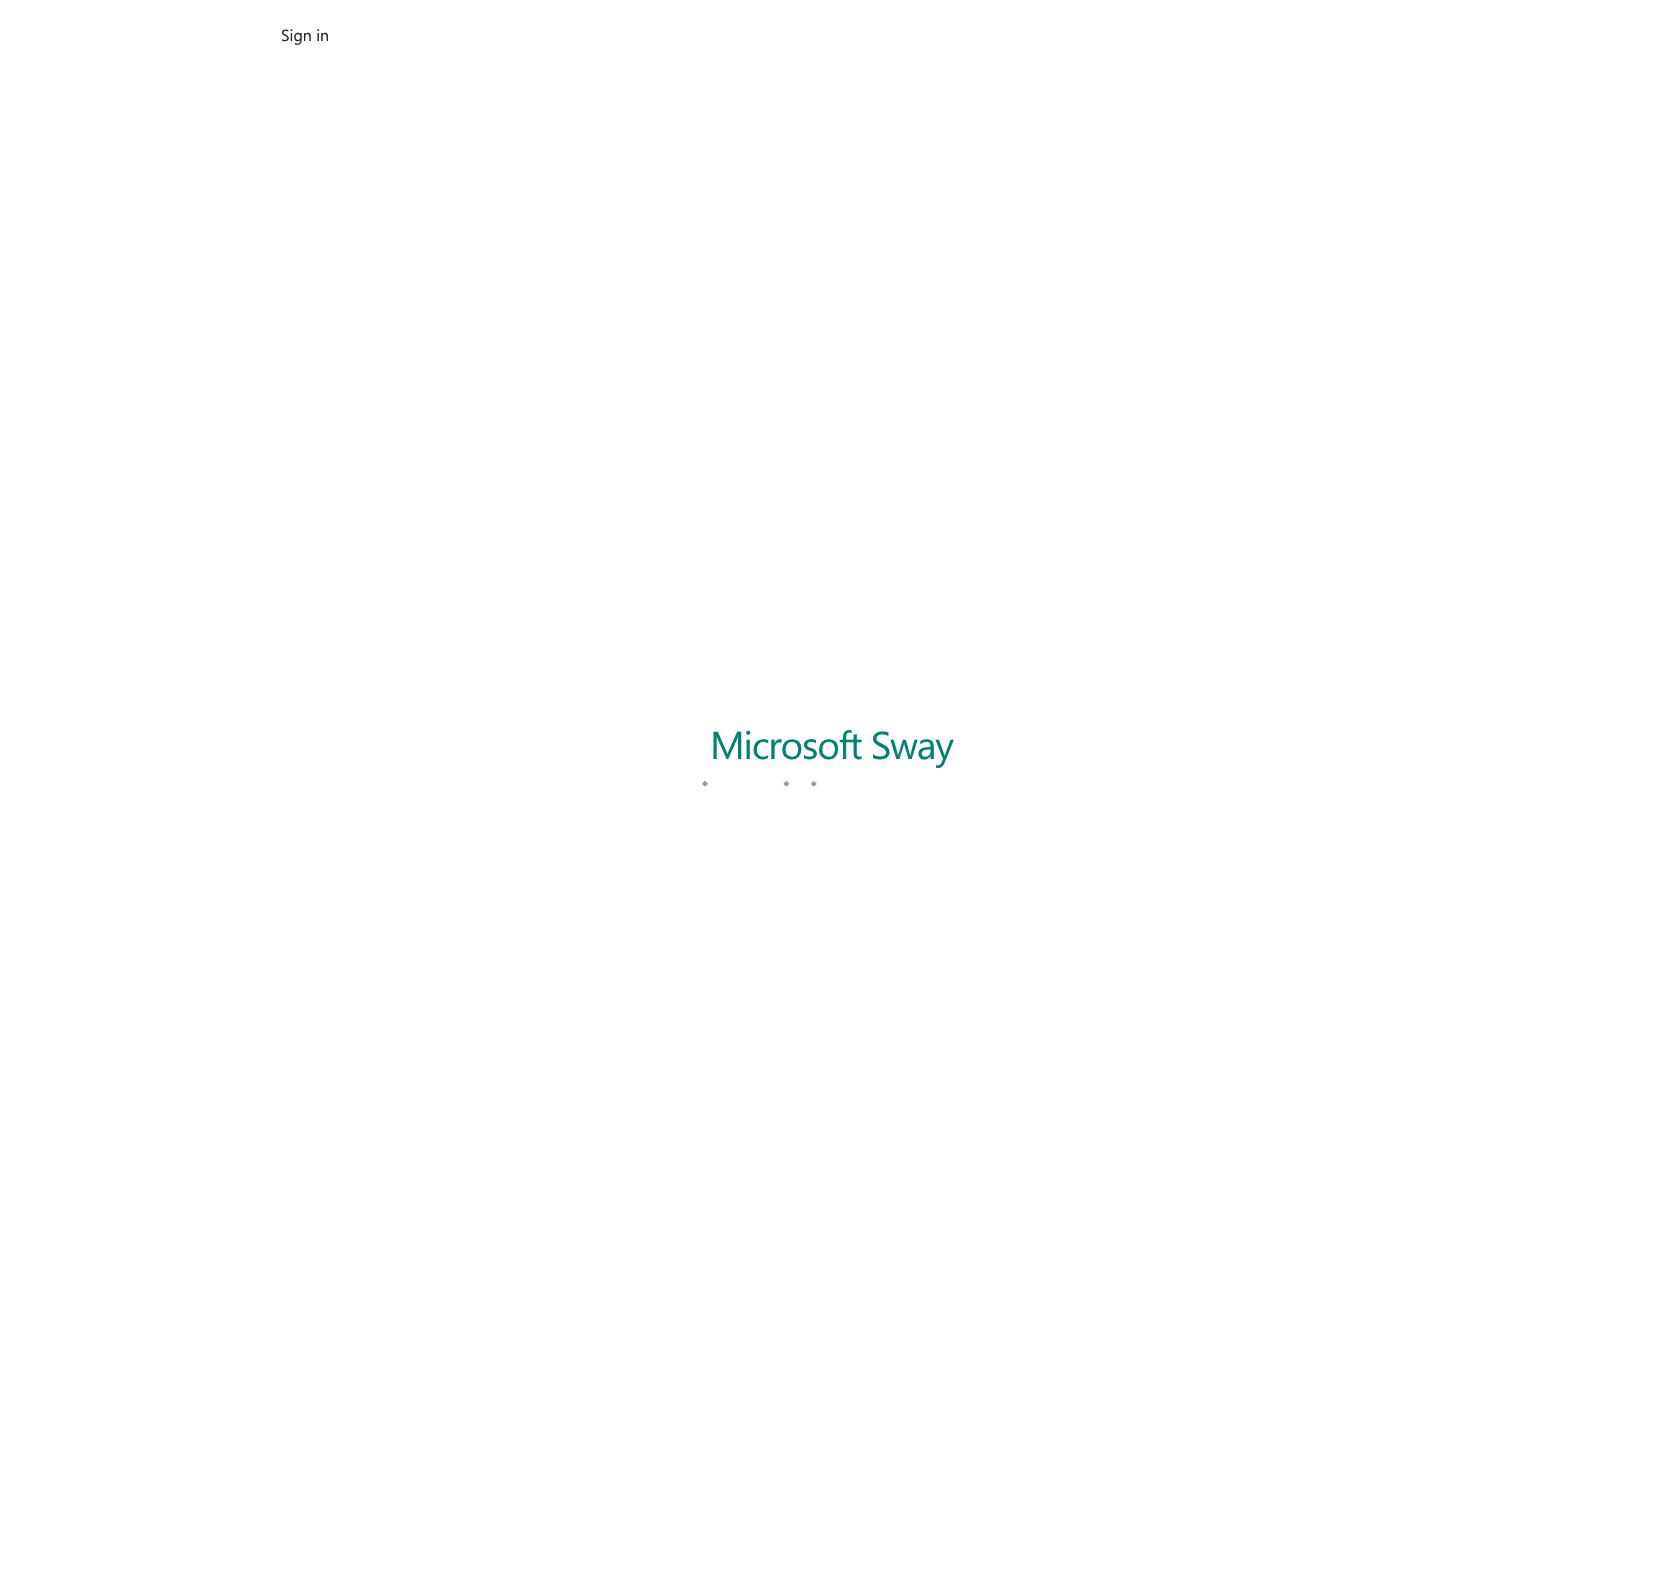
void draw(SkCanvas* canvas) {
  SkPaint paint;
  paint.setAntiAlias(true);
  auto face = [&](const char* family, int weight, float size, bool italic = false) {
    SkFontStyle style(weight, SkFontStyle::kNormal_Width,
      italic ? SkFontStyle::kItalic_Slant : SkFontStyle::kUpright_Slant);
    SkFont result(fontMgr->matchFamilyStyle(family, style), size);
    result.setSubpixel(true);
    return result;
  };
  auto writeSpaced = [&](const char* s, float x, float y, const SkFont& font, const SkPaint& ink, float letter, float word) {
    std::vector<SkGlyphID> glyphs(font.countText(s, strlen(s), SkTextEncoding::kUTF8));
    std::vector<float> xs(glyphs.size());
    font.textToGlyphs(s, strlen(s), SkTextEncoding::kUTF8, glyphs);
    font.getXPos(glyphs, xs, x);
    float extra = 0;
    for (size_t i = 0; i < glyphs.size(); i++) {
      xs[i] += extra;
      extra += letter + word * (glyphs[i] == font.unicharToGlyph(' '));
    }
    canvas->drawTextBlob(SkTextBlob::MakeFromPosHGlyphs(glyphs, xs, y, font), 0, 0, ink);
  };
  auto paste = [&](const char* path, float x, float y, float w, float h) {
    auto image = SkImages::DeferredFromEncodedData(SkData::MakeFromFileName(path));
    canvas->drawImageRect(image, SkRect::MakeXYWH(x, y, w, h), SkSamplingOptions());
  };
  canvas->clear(0xffffffff);
  paste("img/1.png", 702, 781, 115, 6);
  auto f0 = face("Segoe UI", 400, 16);
  paint.setColor(0xff262626);
  canvas->drawString("Sign in", 281, 41, f0, paint);
  auto f1 = face("Segoe UI", 400, 38.75f);
  paint.setColor(0xff008272);
  writeSpaced("Microsoft Sway", 710, 759, f1, paint, -1.25f, 0);
}
